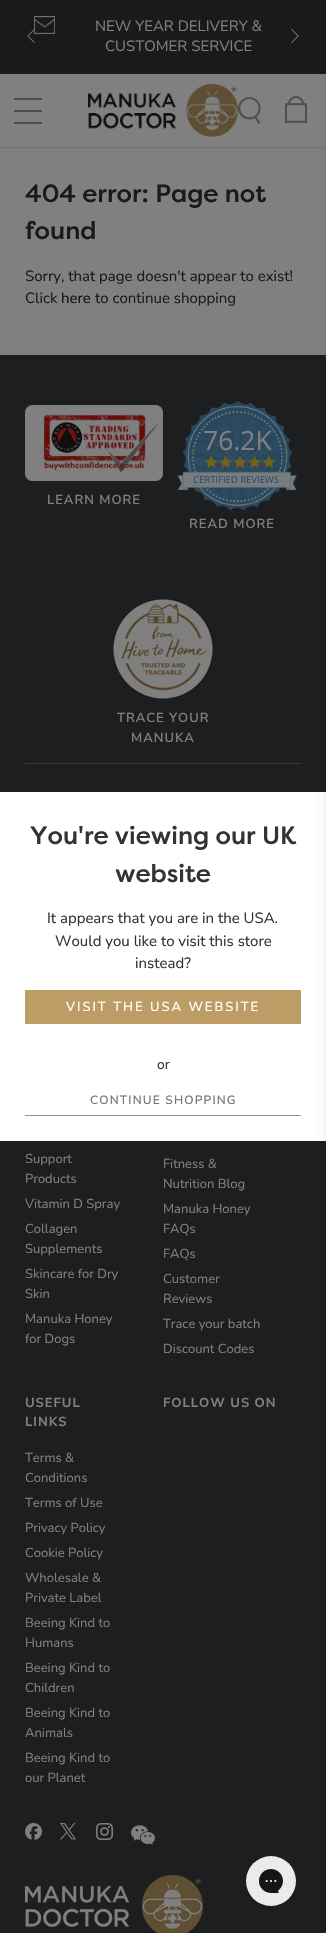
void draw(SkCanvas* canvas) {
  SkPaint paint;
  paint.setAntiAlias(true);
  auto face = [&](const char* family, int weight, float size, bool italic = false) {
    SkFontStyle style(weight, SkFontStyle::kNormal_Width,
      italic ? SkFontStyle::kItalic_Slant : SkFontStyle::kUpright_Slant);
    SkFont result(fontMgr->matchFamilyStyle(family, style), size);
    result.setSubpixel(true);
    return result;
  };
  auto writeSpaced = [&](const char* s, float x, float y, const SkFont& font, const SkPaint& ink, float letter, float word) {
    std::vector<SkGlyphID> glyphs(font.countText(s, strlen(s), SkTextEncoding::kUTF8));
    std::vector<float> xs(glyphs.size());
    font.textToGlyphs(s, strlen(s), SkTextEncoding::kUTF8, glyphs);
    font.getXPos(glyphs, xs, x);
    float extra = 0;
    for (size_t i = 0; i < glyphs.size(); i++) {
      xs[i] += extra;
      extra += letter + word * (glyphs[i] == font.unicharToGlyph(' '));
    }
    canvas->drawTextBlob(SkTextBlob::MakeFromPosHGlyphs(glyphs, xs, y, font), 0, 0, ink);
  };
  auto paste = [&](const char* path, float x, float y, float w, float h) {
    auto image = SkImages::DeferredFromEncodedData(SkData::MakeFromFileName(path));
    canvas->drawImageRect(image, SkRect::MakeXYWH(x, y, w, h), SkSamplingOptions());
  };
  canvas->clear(0xff808080);
  paint.setColor(0xff747474);
  canvas->drawRect(SkRect::MakeXYWH(0, 147, 326, 1), paint);
  paint.setColor(0xff1a1a1a);
  canvas->drawRect(SkRect::MakeXYWH(0, 0, 326, 74), paint);
  paste("img/2.png", 34, 16, 21, 18);
  paste("img/1.png", 27, 29, 8, 14);
  paste("img/3.png", 291, 29, 8, 14);
  {
    const struct { float x, y, w, h; SkColor color; } items[] = {
      {14, 98, 28, 2, 0xff4e4e4e},
      {14, 110, 28, 2, 0xff4e4e4e},
      {14, 122, 28, 2, 0xff4e4e4e},
    };
    for (auto [x, y, w, h, color] : items) {
      paint.setColor(color);
      canvas->drawRect(SkRect::MakeXYWH(x, y, w, h), paint);
    }
  }
  paste("img/4.png", 88, 84, 150, 53);
  paste("img/5.png", 238, 97, 23, 27);
  paste("img/6.png", 285, 96, 22, 27);
  paint.setColor(0xff1d1e1f);
  canvas->drawRect(SkRect::MakeXYWH(0, 355, 326, 1578), paint);
  paint.setColor(0xffffffff);
  canvas->drawRect(SkRect::MakeXYWH(0, 792, 326, 349), paint);
  paint.setColor(0x1a000000);
  paint.setMaskFilter(SkMaskFilter::MakeBlur(kNormal_SkBlurStyle, 5));
  canvas->drawRect(SkRect::MakeXYWH(326, 0, 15, 1933), paint);
  paint.setMaskFilter(nullptr);
  paste("img/7.png", 25, 405, 138, 76);
  paste("img/8.png", 176, 401, 122, 110);
  paste("img/9.png", 205, 456, 13, 12);
  paste("img/10.png", 219, 456, 13, 12);
  paste("img/11.png", 233, 456, 14, 12);
  paste("img/12.png", 248, 456, 13, 12);
  paste("img/13.png", 262, 456, 14, 12);
  paste("img/14.png", 113, 599, 100, 100);
  paint.setColor(0xff3a3a3a);
  canvas->drawRect(SkRect::MakeXYWH(25, 763, 276, 1), paint);
  paste("img/15.png", 25, 1823, 17, 17);
  paste("img/16.png", 60, 1823, 16, 17);
  paste("img/17.png", 96, 1823, 17, 17);
  paste("img/18.png", 131, 1825, 24, 20);
  paste("img/19.png", 25, 1875, 178, 58);
  paint.setColor(0xffbd9d65);
  canvas->drawRect(SkRect::MakeXYWH(25, 990, 276, 34), paint);
  paint.setColor(0xff979797);
  canvas->drawRect(SkRect::MakeXYWH(25, 1115, 276, 1), paint);
  paste("img/20.png", 246, 1856, 50, 50);
  auto f0 = face("Nunito Sans", 400, 15);
  paint.setColor(0xff808080);
  canvas->drawString("NEW YEAR DELIVERY &", 95, 31, f0, paint);
  canvas->drawString("CUSTOMER SERVICE", 105, 51, f0, paint);
  auto f1 = face("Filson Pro", 500, 24.9f);
  paint.setColor(0xff1a1a1a);
  canvas->drawString("404 error: Page not", 25, 202, f1, paint);
  canvas->drawString("found", 25, 239, f1, paint);
  canvas->drawString("Sorry, that page doesn't appear to exist!", 25, 281, f0, paint);
  canvas->drawString("Click", 25, 303, f0, paint);
  paint.setColor(0xff111111);
  canvas->drawString("here", 61, 303, f0, paint);
  paint.setColor(0xff1a1a1a);
  canvas->drawString("to continue shopping", 95, 303, f0, paint);
  auto f2 = face("Nunito Sans", 600, 13);
  paint.setColor(0xff808080);
  writeSpaced("LEARN MORE", 47, 504, f2, paint, 1, 0);
  auto f3 = face("Open Sans", 400, 26.5f);
  canvas->drawString("76.2K", 203, 450, f3, paint);
  auto f4 = face("Open Sans", 400, 9.5f);
  paint.setColor(0xff2d4c61);
  canvas->drawString("CERTIFIED REVIEWS", 193, 483, f4, paint);
  paint.setColor(0xff808080);
  {
    const struct { const char* s; float x, y; } items[] = {
      {"READ MORE", 189, 528},
      {"TRACE YOUR", 117, 722},
      {"MANUKA", 131, 742},
    };
    for (auto [s, x, y] : items) {
      writeSpaced(s, x, y, f2, paint, 1, 0);
    }
  }
  auto f5 = face("Nunito Sans", 400, 13);
  {
    const struct { const char* s; float x, y; } items[] = {
      {"Support", 25, 1163},
      {"Products", 25, 1183},
      {"Vitamin D Spray", 25, 1208},
      {"Collagen", 25, 1233},
      {"Supplements", 25, 1253},
      {"Skincare for Dry", 25, 1278},
      {"Skin", 25, 1298},
      {"Manuka Honey", 25, 1323},
      {"for Dogs", 25, 1343},
      {"Fitness &", 163, 1168},
      {"Nutrition Blog", 163, 1188},
      {"Manuka Honey", 163, 1213},
      {"FAQs", 163, 1233},
      {"FAQs", 163, 1258},
      {"Customer", 163, 1283},
      {"Reviews", 163, 1303},
      {"Trace your batch", 163, 1328},
      {"Discount Codes", 163, 1353},
    };
    for (auto [s, x, y] : items) {
      canvas->drawString(s, x, y, f5, paint);
    }
  }
  auto f6 = face("Nunito Sans", 700, 13);
  writeSpaced("USEFUL", 25, 1407, f6, paint, 1, 0);
  writeSpaced("LINKS", 25, 1426, f6, paint, 1, 0);
  {
    const struct { const char* s; float x, y; } items[] = {
      {"Terms &", 25, 1462},
      {"Conditions", 25, 1482},
      {"Terms of Use", 25, 1507},
      {"Privacy Policy", 25, 1532},
      {"Cookie Policy", 25, 1557},
      {"Wholesale &", 25, 1582},
      {"Private Label", 25, 1602},
      {"Beeing Kind to", 25, 1627},
      {"Humans", 25, 1647},
      {"Beeing Kind to", 25, 1672},
      {"Children", 25, 1692},
      {"Beeing Kind to", 25, 1717},
      {"Animals", 25, 1737},
      {"Beeing Kind to", 25, 1762},
      {"our Planet", 25, 1782},
    };
    for (auto [s, x, y] : items) {
      canvas->drawString(s, x, y, f5, paint);
    }
  }
  writeSpaced("FOLLOW US ON", 163, 1407, f6, paint, 1, 0);
  paint.setColor(0xff333333);
  canvas->drawString("You're viewing our UK", 30, 844, f1, paint);
  canvas->drawString("website", 115, 882, f1, paint);
  {
    const struct { const char* s; float x, y; } items[] = {
      {"It appears that you are in the USA.", 47, 923},
      {"Would you like to visit this store", 55, 946},
      {"instead?", 135, 968},
    };
    for (auto [s, x, y] : items) {
      canvas->drawString(s, x, y, f0, paint);
    }
  }
  auto f7 = face("Nunito Sans", 500, 13);
  paint.setColor(0xffffffff);
  writeSpaced("VISIT THE USA WEBSITE", 66, 1011, f7, paint, 2, 0);
  auto f8 = face("Nunito Sans", 400, 14);
  paint.setColor(0xff333333);
  canvas->drawString("or", 157, 1069, f8, paint);
  auto f9 = face("Nunito Sans", 500, 12);
  paint.setColor(0xff737373);
  writeSpaced("CONTINUE SHOPPING", 90, 1104, f9, paint, 1.2f, 0);
}
